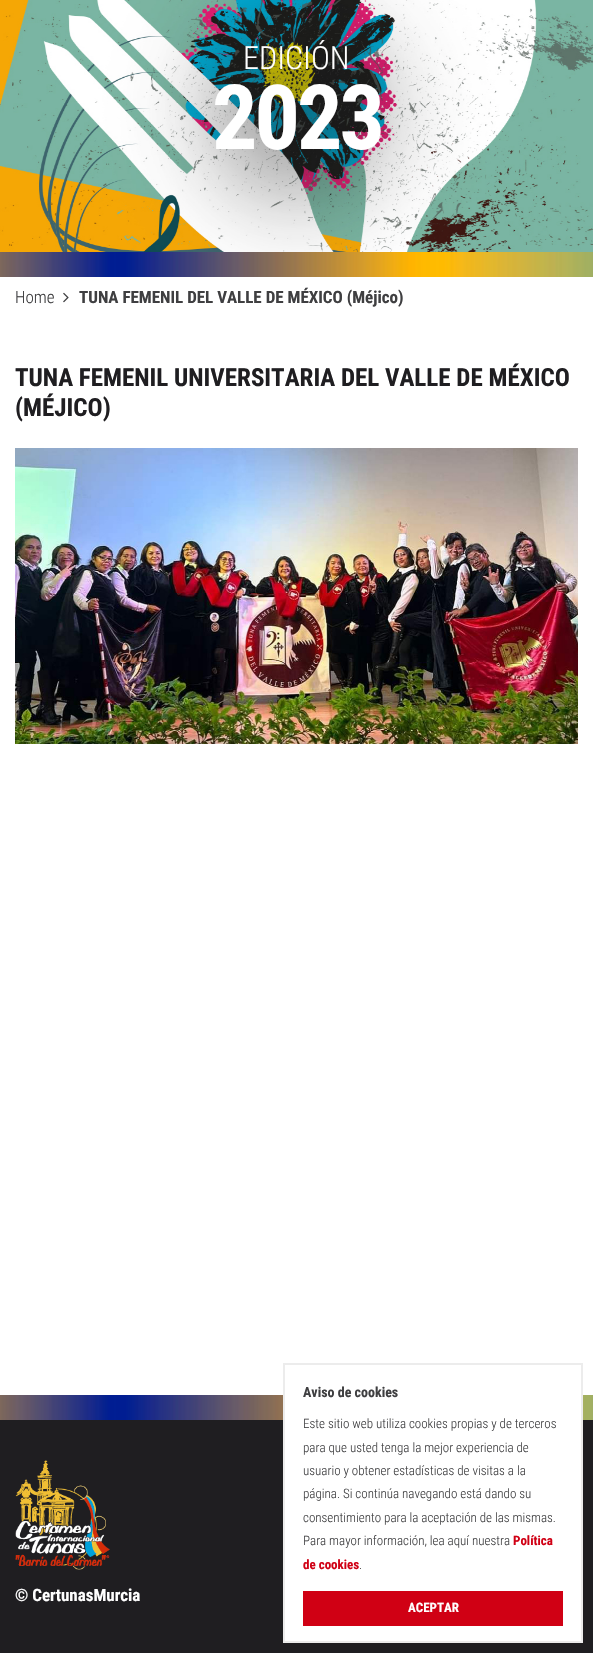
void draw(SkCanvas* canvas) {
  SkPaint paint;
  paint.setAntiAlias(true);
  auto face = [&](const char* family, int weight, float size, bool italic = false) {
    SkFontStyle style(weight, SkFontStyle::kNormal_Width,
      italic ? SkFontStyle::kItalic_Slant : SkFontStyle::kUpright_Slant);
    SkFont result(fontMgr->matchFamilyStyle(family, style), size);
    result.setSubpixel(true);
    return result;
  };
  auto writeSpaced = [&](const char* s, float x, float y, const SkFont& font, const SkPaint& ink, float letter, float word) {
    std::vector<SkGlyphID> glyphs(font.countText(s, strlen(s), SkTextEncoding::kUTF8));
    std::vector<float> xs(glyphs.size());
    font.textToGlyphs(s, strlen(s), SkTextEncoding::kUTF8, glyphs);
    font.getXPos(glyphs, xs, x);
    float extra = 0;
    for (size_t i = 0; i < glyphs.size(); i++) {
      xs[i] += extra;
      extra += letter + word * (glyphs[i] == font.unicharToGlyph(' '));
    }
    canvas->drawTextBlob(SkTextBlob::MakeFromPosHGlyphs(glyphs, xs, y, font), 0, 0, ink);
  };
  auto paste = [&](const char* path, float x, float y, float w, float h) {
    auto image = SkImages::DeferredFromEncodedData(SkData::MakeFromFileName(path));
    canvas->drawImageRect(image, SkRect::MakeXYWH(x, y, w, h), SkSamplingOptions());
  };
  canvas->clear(0xffffffff);
  paste("img/1.png", 0, 0, 593, 252);
  paste("img/2.png", 0, 252, 593, 25);
  paste("img/3.png", 63, 292, 6, 11);
  paste("img/4.png", 15, 448, 563, 296);
  paint.setColor(0xff1f1e21);
  canvas->drawRect(SkRect::MakeXYWH(0, 1420, 593, 233), paint);
  paste("img/2.png", 0, 1395, 593, 25);
  paste("img/5.png", 15, 1460, 95, 110);
  paint.setColor(0xffffffff);
  canvas->drawRect(SkRect::MakeXYWH(285, 1395, 296, 246), paint);
  paint.setStroke(true);
  paint.setStrokeWidth(2);
  paint.setColor(0xffececec);
  canvas->drawRect(SkRect::MakeXYWH(284, 1364, 298, 278), paint);
  paint.setStroke(false);
  paint.setColor(0xffd00014);
  canvas->drawRect(SkRect::MakeXYWH(303, 1591, 260, 35), paint);
  auto f0 = face("Roboto Condensed", 300, 32);
  paint.setColor(0xffffffff);
  canvas->drawString("EDICIÓN", 243, 69, f0, paint);
  auto f1 = face("Roboto Condensed", 700, 90);
  writeSpaced("2023", 212, 149, f1, paint, -3, 0);
  auto f2 = face("Roboto Condensed", 300, 17);
  paint.setColor(0xff3f3f41);
  canvas->drawString("Home", 15, 303, f2, paint);
  auto f3 = face("Roboto Condensed", 700, 17);
  canvas->drawString("TUNA FEMENIL DEL VALLE DE MÉXICO (Méjico)", 79, 303, f3, paint);
  auto f4 = face("Roboto Condensed", 700, 25);
  paint.setColor(0xff1f1e21);
  canvas->drawString("TUNA FEMENIL UNIVERSITARIA DEL VALLE DE MÉXICO", 15, 386, f4, paint);
  canvas->drawString("(MÉJICO)", 15, 416, f4, paint);
  paint.setColor(0xffffffff);
  canvas->drawString("© CertunasMurcia", 15, 1601, f3, paint);
  auto f5 = face("Roboto Condensed", 700, 14);
  paint.setColor(0xff3f3f41);
  canvas->drawString("Aviso de cookies", 303, 1397, f5, paint);
  auto f6 = face("Roboto Condensed", 300, 13);
  {
    const struct { const char* s; float x, y; } items[] = {
      {"Este sitio web utiliza cookies propias y de terceros", 303, 1428},
      {"para que usted tenga la mejor experiencia de", 303, 1452},
      {"usuario y obtener estadísticas de visitas a la", 303, 1475},
      {"página. Si continúa navegando está dando su", 303, 1498},
      {"consentimiento para la aceptación de las mismas.", 303, 1522},
      {"Para mayor información, lea aquí nuestra", 303, 1545},
    };
    for (auto [s, x, y] : items) {
      canvas->drawString(s, x, y, f6, paint);
    }
  }
  auto f7 = face("Roboto Condensed", 700, 13);
  paint.setColor(0xffd00014);
  canvas->drawString("Política", 513, 1545, f7, paint);
  canvas->drawString("de cookies", 303, 1569, f7, paint);
  paint.setColor(0xff3f3f41);
  canvas->drawString(".", 359, 1569, f6, paint);
  paint.setColor(0xffffffff);
  canvas->drawString("ACEPTAR", 408, 1612, f7, paint);
}
